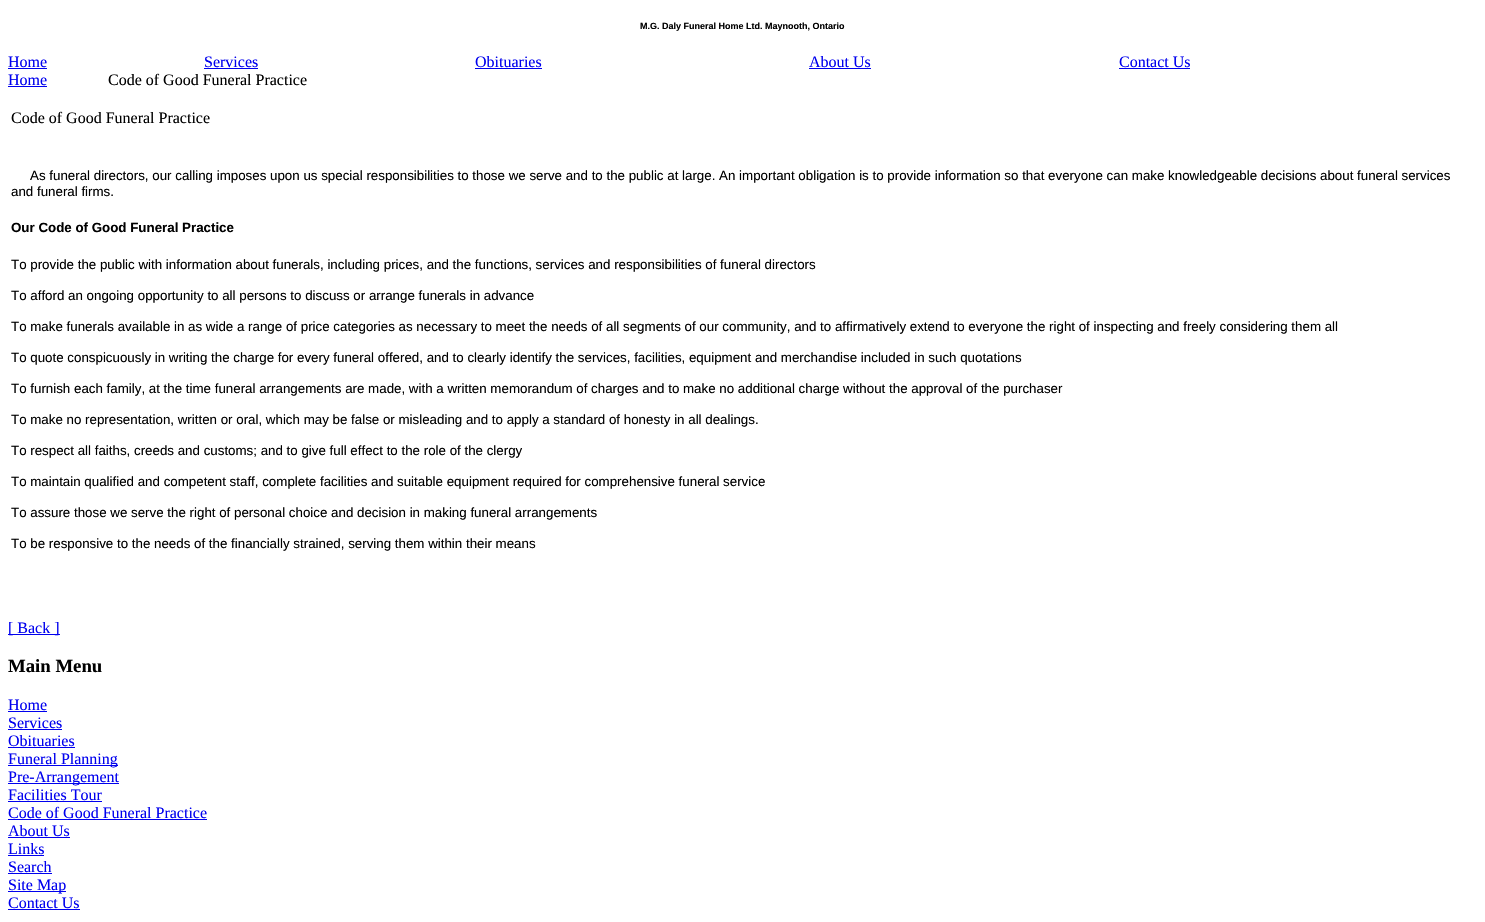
void draw(SkCanvas* canvas) {
  SkPaint paint;
  paint.setAntiAlias(true);
  auto face = [&](const char* family, int weight, float size, bool italic = false) {
    SkFontStyle style(weight, SkFontStyle::kNormal_Width,
      italic ? SkFontStyle::kItalic_Slant : SkFontStyle::kUpright_Slant);
    SkFont result(fontMgr->matchFamilyStyle(family, style), size);
    result.setSubpixel(true);
    return result;
  };
  canvas->clear(0xffffffff);
  {
    const struct { float x, y, w, h; SkColor color; } items[] = {
      {8, 68, 39, 1, 0xff0000ee},
      {204, 68, 54, 1, 0xff0000ee},
      {475, 68, 67, 1, 0xff0000ee},
      {809, 68, 62, 1, 0xff0000ee},
      {1119, 68, 71, 1, 0xff0000ee},
      {8, 86, 39, 1, 0xff0000ee},
      {8, 634, 52, 1, 0xff0000ee},
      {8, 711, 39, 1, 0xff0000ee},
      {8, 729, 54, 1, 0xff0000ee},
      {8, 747, 67, 1, 0xff0000ee},
      {8, 765, 110, 1, 0xff0000ee},
      {8, 783, 111, 1, 0xff0000ee},
      {8, 801, 94, 1, 0xff0000ee},
      {8, 819, 199, 1, 0xff0000ee},
      {8, 837, 62, 1, 0xff0000ee},
      {8, 855, 36, 1, 0xff0000ee},
      {8, 873, 44, 1, 0xff0000ee},
      {8, 891, 58, 1, 0xff0000ee},
      {8, 909, 72, 1, 0xff0000ee},
    };
    for (auto [x, y, w, h, color] : items) {
      paint.setColor(color);
      canvas->drawRect(SkRect::MakeXYWH(x, y, w, h), paint);
    }
  }
  auto f0 = face("Liberation Sans", 700, 9);
  paint.setColor(0xff000000);
  canvas->drawString("M.G. Daly Funeral Home Ltd. Maynooth, Ontario", 640, 29, f0, paint);
  auto f1 = face("Liberation Serif", 400, 16);
  paint.setColor(0xff0000ee);
  {
    const struct { const char* s; float x, y; } items[] = {
      {"Home", 8, 67},
      {"Services", 204, 67},
      {"Obituaries", 475, 67},
      {"About Us", 809, 67},
      {"Contact Us", 1119, 67},
      {"Home", 8, 85},
    };
    for (auto [s, x, y] : items) {
      canvas->drawString(s, x, y, f1, paint);
    }
  }
  paint.setColor(0xff000000);
  canvas->drawString("Code of Good Funeral Practice", 108, 85, f1, paint);
  canvas->drawString("Code of Good Funeral Practice", 11, 123, f1, paint);
  auto f2 = face("Liberation Sans", 400, 13.33f);
  canvas->drawString("As funeral directors, our calling imposes upon us special responsibilities to those we serve and to the public at large. An important obligation is to provide information so that everyone can make knowledgeable decisions about funeral services", 30, 180, f2, paint);
  canvas->drawString("and funeral firms.", 11, 196, f2, paint);
  auto f3 = face("Liberation Sans", 700, 13.33f);
  canvas->drawString("Our Code of Good Funeral Practice", 11, 232, f3, paint);
  {
    const struct { const char* s; float x, y; } items[] = {
      {"To provide the public with information about funerals, including prices, and the functions, services and responsibilities of funeral directors", 11, 269},
      {"To afford an ongoing opportunity to all persons to discuss or arrange funerals in advance", 11, 300},
      {"To make funerals available in as wide a range of price categories as necessary to meet the needs of all segments of our community, and to affirmatively extend to everyone the right of inspecting and freely considering them all", 11, 331},
      {"To quote conspicuously in writing the charge for every funeral offered, and to clearly identify the services, facilities, equipment and merchandise included in such quotations", 11, 362},
      {"To furnish each family, at the time funeral arrangements are made, with a written memorandum of charges and to make no additional charge without the approval of the purchaser", 11, 393},
      {"To make no representation, written or oral, which may be false or misleading and to apply a standard of honesty in all dealings.", 11, 424},
      {"To respect all faiths, creeds and customs; and to give full effect to the role of the clergy", 11, 455},
      {"To maintain qualified and competent staff, complete facilities and suitable equipment required for comprehensive funeral service", 11, 486},
      {"To assure those we serve the right of personal choice and decision in making funeral arrangements", 11, 517},
      {"To be responsive to the needs of the financially strained, serving them within their means", 11, 548},
    };
    for (auto [s, x, y] : items) {
      canvas->drawString(s, x, y, f2, paint);
    }
  }
  paint.setColor(0xff0000ee);
  canvas->drawString("[ Back ]", 8, 633, f1, paint);
  auto f4 = face("Liberation Serif", 700, 18.75f);
  paint.setColor(0xff000000);
  canvas->drawString("Main Menu", 8, 672, f4, paint);
  paint.setColor(0xff0000ee);
  {
    const struct { const char* s; float x, y; } items[] = {
      {"Home", 8, 710},
      {"Services", 8, 728},
      {"Obituaries", 8, 746},
      {"Funeral Planning", 8, 764},
      {"Pre-Arrangement", 8, 782},
      {"Facilities Tour", 8, 800},
      {"Code of Good Funeral Practice", 8, 818},
      {"About Us", 8, 836},
      {"Links", 8, 854},
      {"Search", 8, 872},
      {"Site Map", 8, 890},
      {"Contact Us", 8, 908},
    };
    for (auto [s, x, y] : items) {
      canvas->drawString(s, x, y, f1, paint);
    }
  }
}
